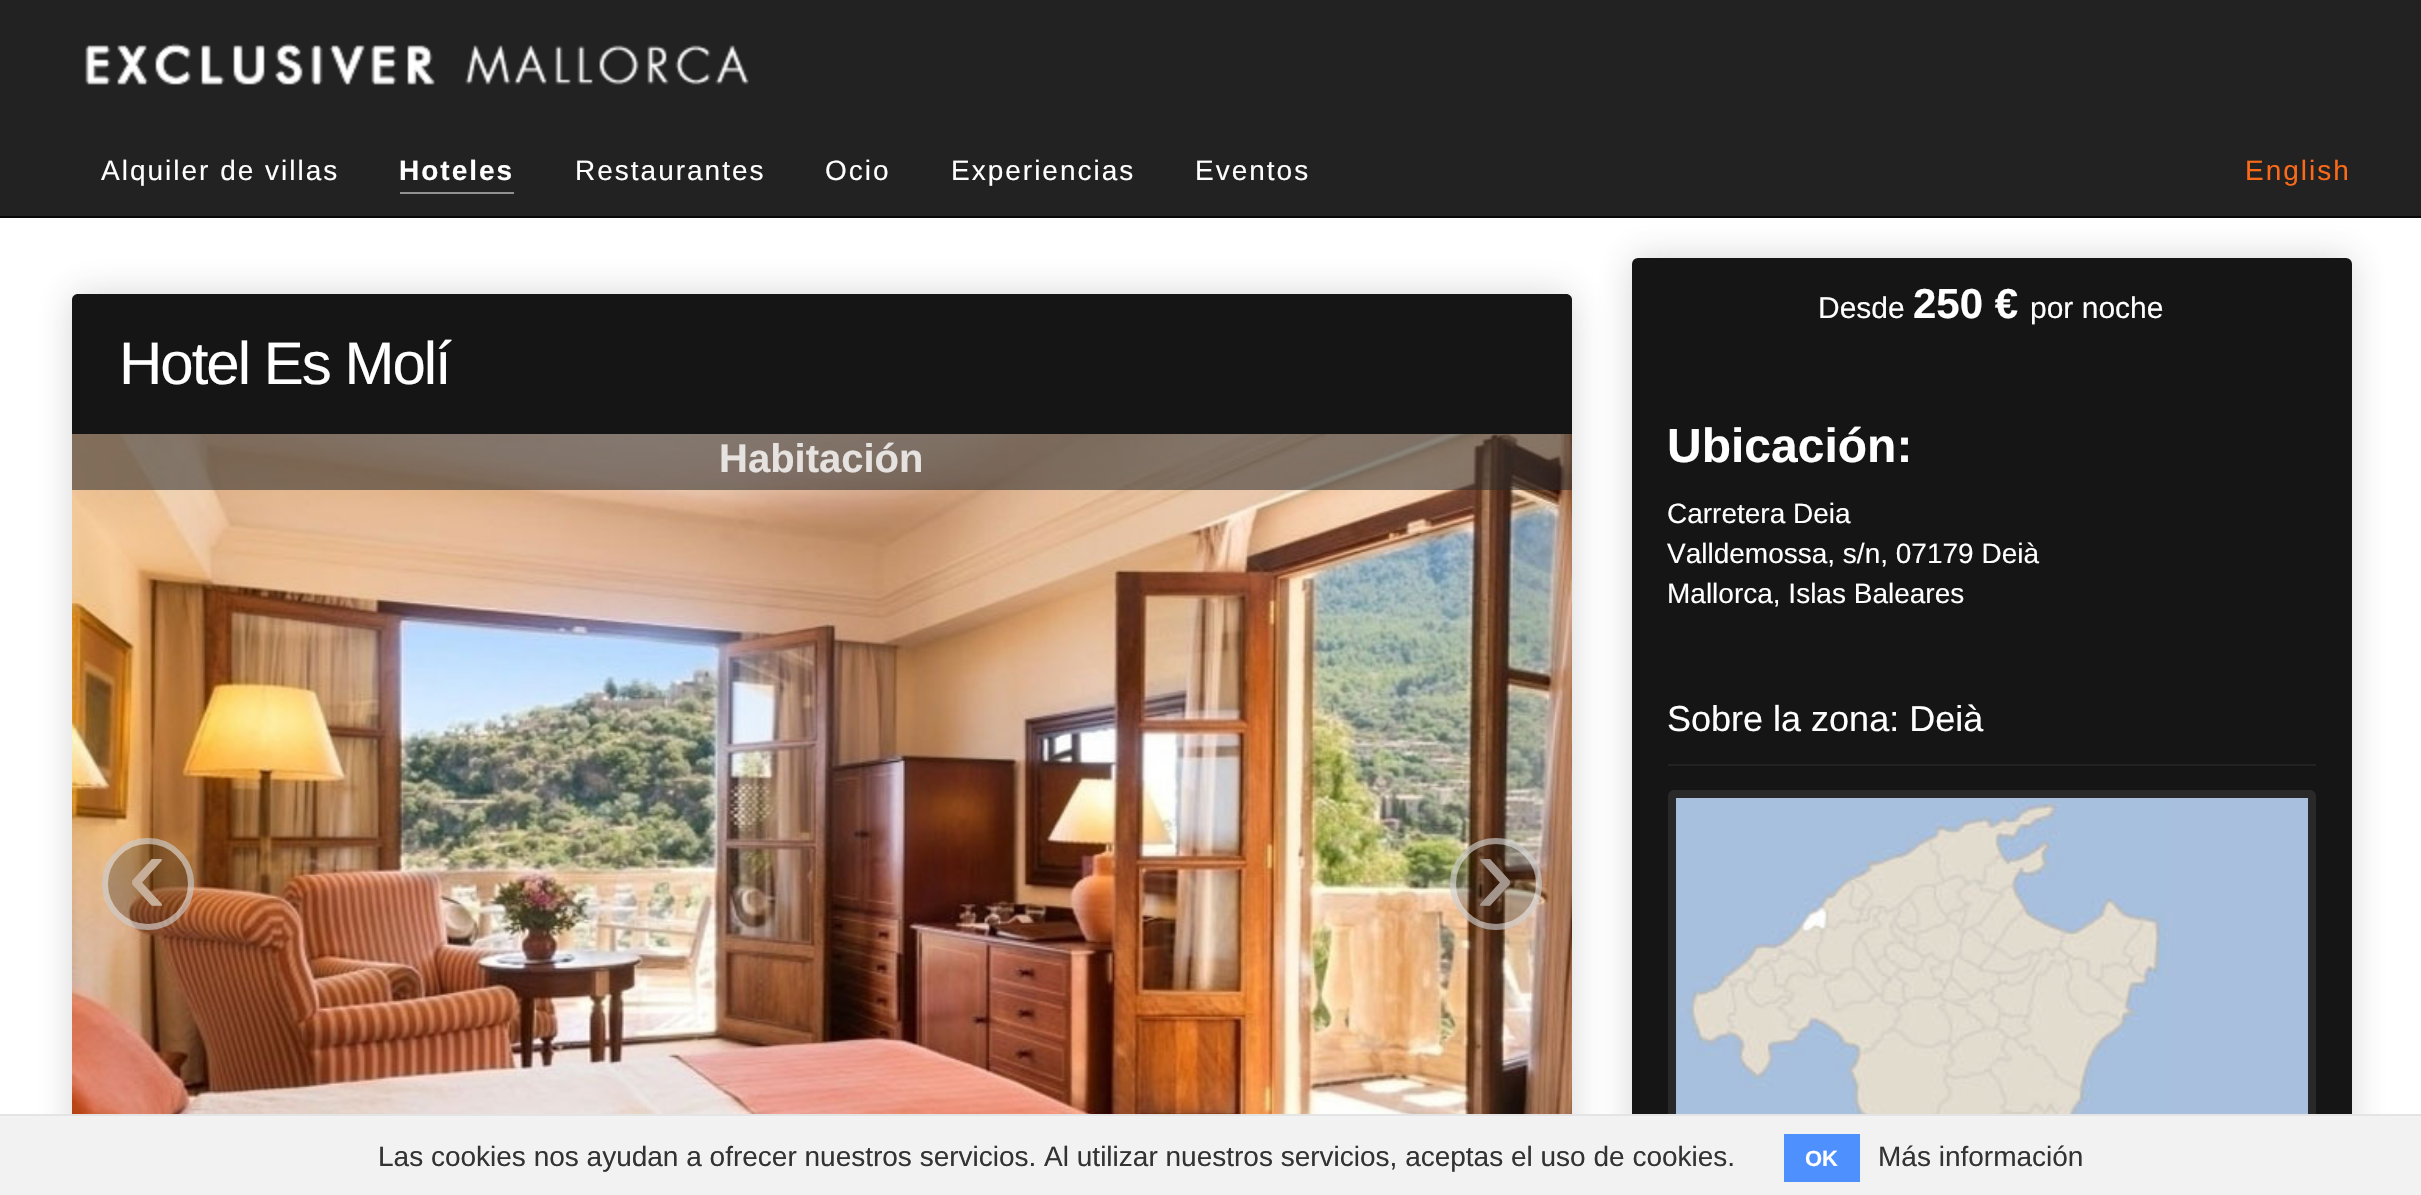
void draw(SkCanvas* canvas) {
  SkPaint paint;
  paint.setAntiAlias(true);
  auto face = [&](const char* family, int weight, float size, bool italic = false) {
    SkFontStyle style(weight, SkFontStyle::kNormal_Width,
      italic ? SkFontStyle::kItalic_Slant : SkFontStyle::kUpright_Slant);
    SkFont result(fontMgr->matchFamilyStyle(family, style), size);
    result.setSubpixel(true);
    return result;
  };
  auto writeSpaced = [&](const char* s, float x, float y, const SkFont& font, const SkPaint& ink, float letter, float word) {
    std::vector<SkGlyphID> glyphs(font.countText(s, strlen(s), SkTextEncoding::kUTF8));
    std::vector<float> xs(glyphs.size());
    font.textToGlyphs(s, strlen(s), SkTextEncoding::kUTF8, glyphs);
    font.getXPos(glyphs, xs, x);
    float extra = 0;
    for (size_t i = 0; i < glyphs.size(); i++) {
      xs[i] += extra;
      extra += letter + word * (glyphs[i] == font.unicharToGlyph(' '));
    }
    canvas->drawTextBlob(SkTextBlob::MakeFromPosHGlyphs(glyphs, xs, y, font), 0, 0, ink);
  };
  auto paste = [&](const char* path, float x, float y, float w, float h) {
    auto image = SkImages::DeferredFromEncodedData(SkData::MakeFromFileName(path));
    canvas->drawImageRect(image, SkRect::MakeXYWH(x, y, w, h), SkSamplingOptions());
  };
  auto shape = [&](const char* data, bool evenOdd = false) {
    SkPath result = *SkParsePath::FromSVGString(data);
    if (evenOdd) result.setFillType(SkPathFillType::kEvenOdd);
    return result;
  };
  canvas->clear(0xffffffff);
  paint.setColor(0x33323232);
  paint.setMaskFilter(SkMaskFilter::MakeBlur(kNormal_SkBlurStyle, 18));
  canvas->drawRoundRect(SkRect::MakeXYWH(1632, 258, 720, 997), 6, 6, paint);
  paint.setMaskFilter(nullptr);
  paint.setColor(0xff222222);
  canvas->drawRect(SkRect::MakeXYWH(0, 0, 2421, 216), paint);
  paint.setColor(0xff080808);
  canvas->drawRect(SkRect::MakeXYWH(0, 216, 2421, 2), paint);
  paste("img/1.png", 85, 43, 664, 42);
  paint.setColor(0xff919191);
  canvas->drawRect(SkRect::MakeXYWH(400, 192, 114, 2), paint);
  paint.setColor(0x33323232);
  paint.setMaskFilter(SkMaskFilter::MakeBlur(kNormal_SkBlurStyle, 18));
  canvas->drawRoundRect(SkRect::MakeXYWH(72, 294, 1500, 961), 6, 6, paint);
  paint.setMaskFilter(nullptr);
  paint.setColor(0xff151515);
  canvas->drawPath(shape("M78 294H1566C1569.5 294 1572 296.5 1572 300V434H72V300C72 296.5 74.5 294 78 294Z"), paint);
  paste("img/2.png", 72, 434, 1500, 680);
  paint.setColor(0x8c292929);
  canvas->drawRect(SkRect::MakeXYWH(72, 434, 1500, 56), paint);
  paint.setColor(0x40000000);
  canvas->drawCircle(148, 884, 46, paint);
  paint.setStroke(true);
  paint.setStrokeWidth(6);
  paint.setColor(0x80ffffff);
  canvas->drawCircle(148, 884, 43, paint);
  paint.setStroke(false);
  paint.setColor(0x40000000);
  canvas->drawCircle(1496, 884, 46, paint);
  paint.setStroke(true);
  paint.setColor(0x80ffffff);
  canvas->drawCircle(1496, 884, 43, paint);
  paint.setStroke(false);
  paint.setColor(0xff151515);
  canvas->drawRoundRect(SkRect::MakeXYWH(1632, 258, 720, 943), 6, 6, paint);
  paint.setColor(0xff222222);
  canvas->drawRect(SkRect::MakeXYWH(1668, 764, 648, 2), paint);
  paint.setColor(0xffa8c0de);
  canvas->drawRoundRect(SkRect::MakeXYWH(1672, 794, 640, 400), 2, 2, paint);
  paint.setStroke(true);
  paint.setStrokeWidth(8);
  paint.setColor(0xff292929);
  canvas->drawRoundRect(SkRect::MakeXYWH(1672, 794, 640, 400), 2, 2, paint);
  paste("img/3.png", 1676, 800, 496, 314);
  paint.setStroke(false);
  {
    const struct { float x, y, w, h; SkColor color; } items[] = {
      {0, 1116, 2421, 79, 0xfff2f2f2},
      {0, 1114, 2421, 2, 0xffe4e4e4},
      {1784, 1134, 76, 48, 0xff4d90fe},
    };
    for (auto [x, y, w, h, color] : items) {
      paint.setColor(color);
      canvas->drawRect(SkRect::MakeXYWH(x, y, w, h), paint);
    }
  }
  auto f0 = face("Liberation Sans", 400, 28);
  paint.setColor(0xffffffff);
  writeSpaced("Alquiler de villas", 101, 180, f0, paint, 2, 0);
  auto f1 = face("Liberation Sans", 700, 28);
  writeSpaced("Hoteles", 399, 180, f1, paint, 2, 0);
  {
    const struct { const char* s; float x, y; } items[] = {
      {"Restaurantes", 575, 180},
      {"Ocio", 825, 180},
      {"Experiencias", 951, 180},
      {"Eventos", 1195, 180},
    };
    for (auto [s, x, y] : items) {
      writeSpaced(s, x, y, f0, paint, 2, 0);
    }
  }
  paint.setColor(0xfffb6a18);
  writeSpaced("English", 2245, 180, f0, paint, 2, 0);
  auto f2 = face("Liberation Sans", 400, 60);
  paint.setColor(0xffffffff);
  writeSpaced("Hotel Es Molí", 119, 384, f2, paint, -2, 0);
  auto f3 = face("Liberation Sans", 700, 40);
  paint.setColor(0xffe5e2e0);
  canvas->drawString("Habitación", 719, 472, f3, paint);
  auto f4 = face("Liberation Sans", 400, 120);
  paint.setColor(0xffc6ae99);
  canvas->drawString("‹", 127, 914, f4, paint);
  paint.setColor(0xffa4958c);
  canvas->drawString("›", 1475, 914, f4, paint);
  auto f5 = face("Liberation Sans", 400, 30);
  paint.setColor(0xffffffff);
  canvas->drawString("Desde", 1818, 318, f5, paint);
  auto f6 = face("Liberation Sans", 700, 42);
  canvas->drawString("250 €", 1913, 318, f6, paint);
  canvas->drawString("por noche", 2030, 318, f5, paint);
  auto f7 = face("Liberation Sans", 700, 48);
  canvas->drawString("Ubicación:", 1667, 462, f7, paint);
  {
    const struct { const char* s; float x, y; } items[] = {
      {"Carretera Deia", 1667, 523},
      {"Valldemossa, s/n, 07179 Deià", 1667, 563},
      {"Mallorca, Islas Baleares", 1667, 603},
    };
    for (auto [s, x, y] : items) {
      canvas->drawString(s, x, y, f0, paint);
    }
  }
  auto f8 = face("Liberation Sans", 400, 36);
  canvas->drawString("Sobre la zona: Deià", 1667, 731, f8, paint);
  paint.setColor(0xff333333);
  canvas->drawString("Las cookies nos ayudan a ofrecer nuestros servicios. Al utilizar nuestros servicios, aceptas el uso de cookies.", 378, 1166, f0, paint);
  auto f9 = face("Liberation Sans", 700, 22);
  paint.setColor(0xffffffff);
  canvas->drawString("OK", 1805, 1166, f9, paint);
  paint.setColor(0xff333333);
  canvas->drawString("Más información", 1878, 1166, f0, paint);
}
